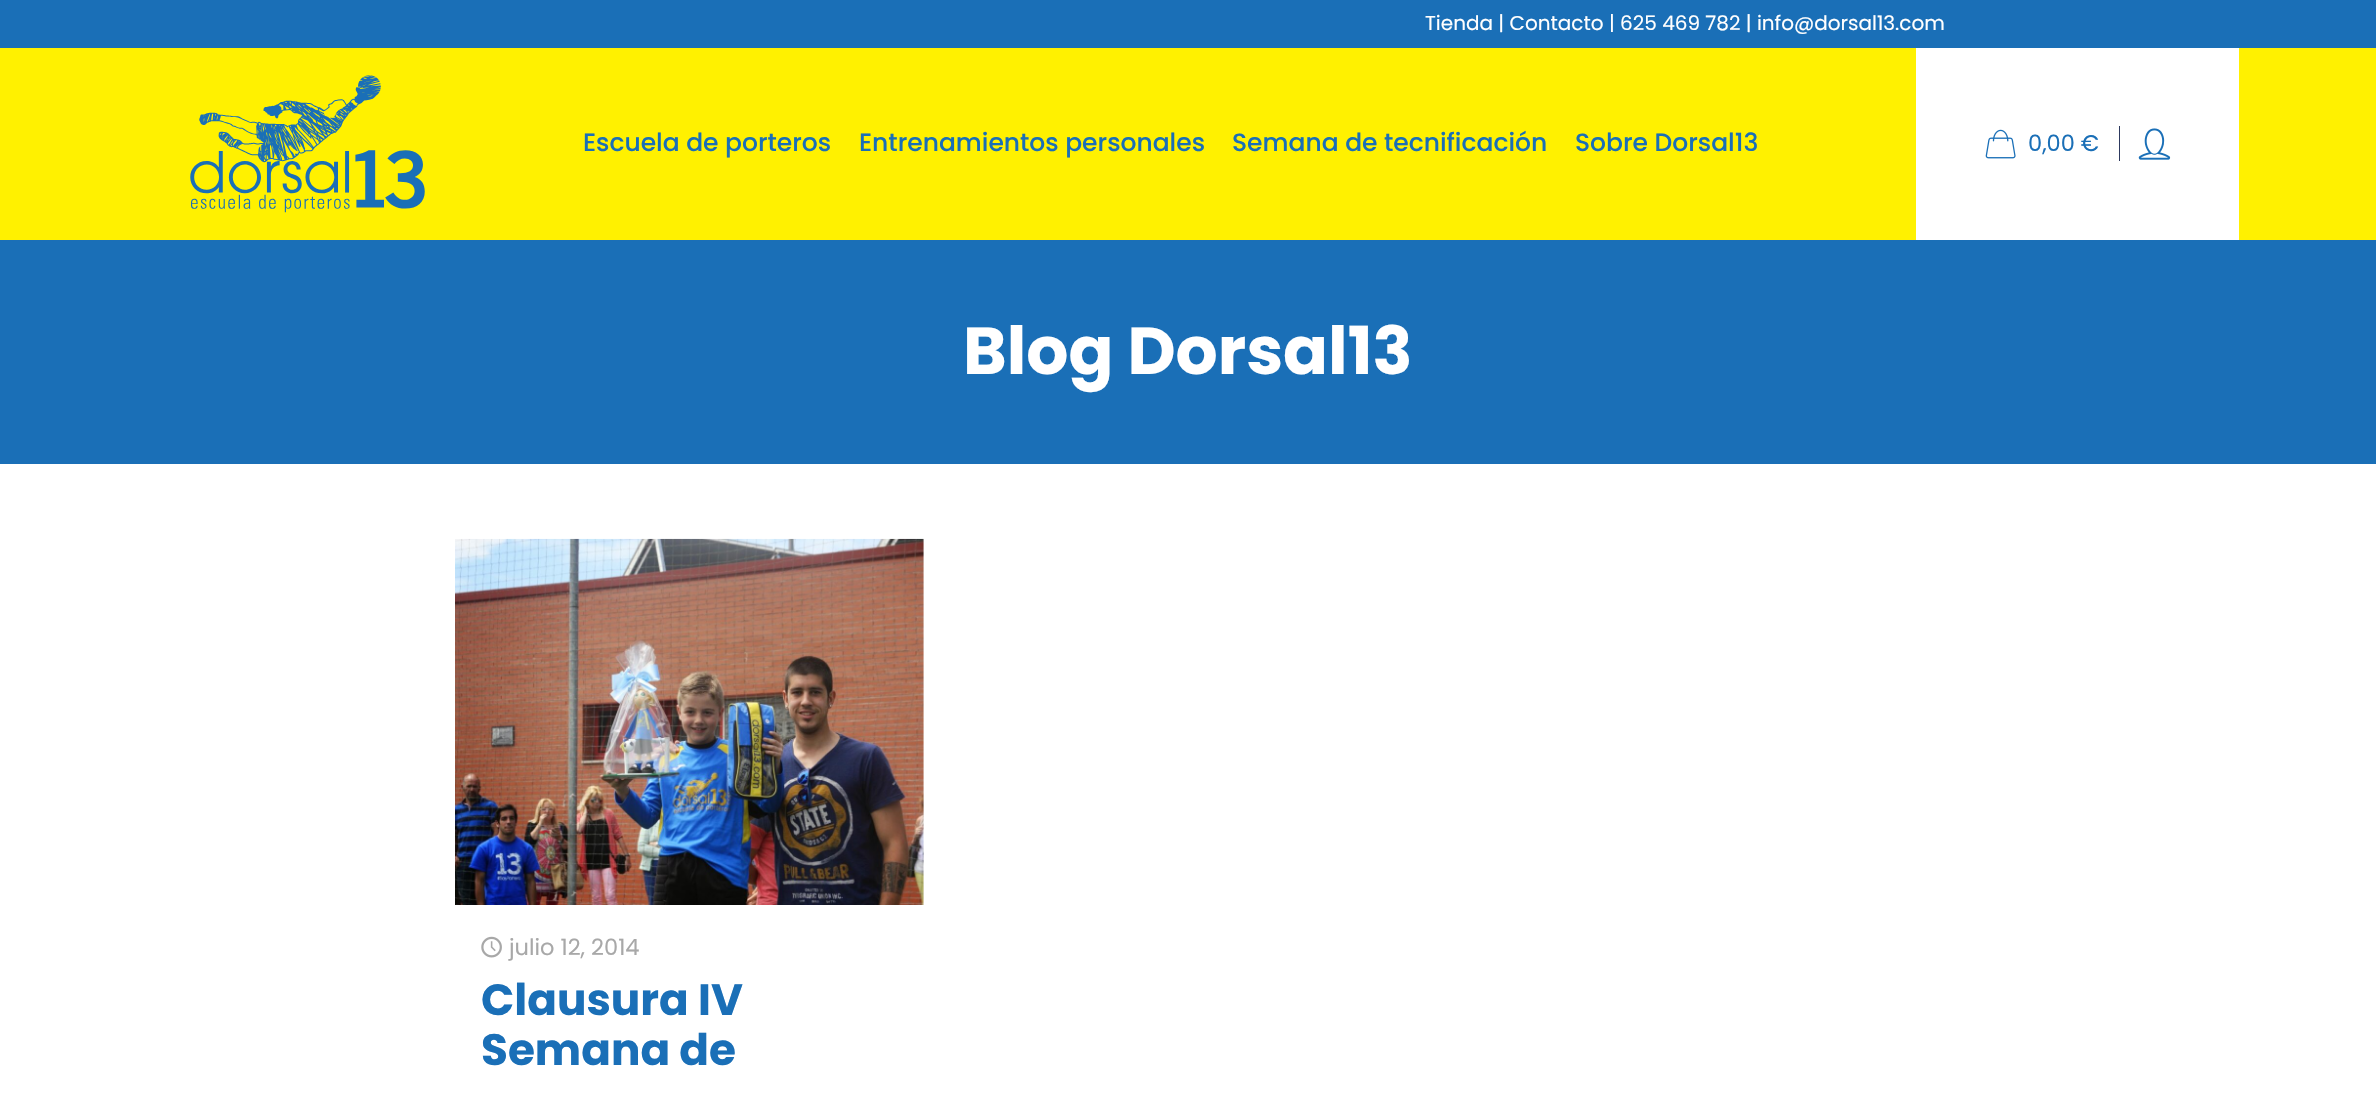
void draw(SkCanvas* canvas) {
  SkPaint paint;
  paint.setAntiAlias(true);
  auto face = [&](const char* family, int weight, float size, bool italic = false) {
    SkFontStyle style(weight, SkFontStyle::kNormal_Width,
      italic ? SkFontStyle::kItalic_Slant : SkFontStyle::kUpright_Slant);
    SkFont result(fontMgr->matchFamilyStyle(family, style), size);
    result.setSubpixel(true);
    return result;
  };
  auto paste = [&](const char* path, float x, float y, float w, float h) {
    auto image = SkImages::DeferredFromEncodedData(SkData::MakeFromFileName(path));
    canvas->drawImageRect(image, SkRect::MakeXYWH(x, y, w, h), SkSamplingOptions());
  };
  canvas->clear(0xffffffff);
  paint.setColor(0xff1a6fb7);
  canvas->drawRect(SkRect::MakeXYWH(0, 0, 2376, 48), paint);
  paint.setColor(0xfffff100);
  canvas->drawRect(SkRect::MakeXYWH(0, 48, 2376, 192), paint);
  paste("img/1.png", 190, 75, 235, 138);
  paint.setColor(0xffffffff);
  canvas->drawRect(SkRect::MakeXYWH(1916, 48, 323, 192), paint);
  paint.setColor(0xff2d395f);
  canvas->drawRect(SkRect::MakeXYWH(2119, 126, 1, 35), paint);
  paste("img/2.png", 1985, 129, 31, 30);
  paste("img/3.png", 2138, 128, 33, 32);
  paint.setColor(0xff1a6fb7);
  canvas->drawRect(SkRect::MakeXYWH(0, 240, 2376, 224), paint);
  paste("img/4.png", 455, 538, 469, 367);
  paste("img/5.png", 481, 936, 21, 22);
  auto f0 = face("Poppins", 400, 20);
  paint.setColor(0xffffffff);
  canvas->drawString("Tienda | Contacto | 625 469 782 | info@dorsal13.com", 1425, 30, f0, paint);
  auto f1 = face("Poppins", 500, 25);
  paint.setColor(0xff1a6fb7);
  {
    const struct { const char* s; float x, y; } items[] = {
      {"Escuela de porteros", 583, 151},
      {"Entrenamientos personales", 859, 151},
      {"Semana de tecnificación", 1232, 151},
      {"Sobre Dorsal13", 1575, 151},
    };
    for (auto [s, x, y] : items) {
      canvas->drawString(s, x, y, f1, paint);
    }
  }
  auto f2 = face("Poppins", 400, 22.5f);
  canvas->drawString("0,00 €", 2028, 151, f2, paint);
  auto f3 = face("Poppins", 700, 66.25f);
  paint.setColor(0xffffffff);
  canvas->drawString("Blog Dorsal13", 963, 374, f3, paint);
  paint.setColor(0xffa8a8a8);
  canvas->drawString("julio 12, 2014", 509, 955, f2, paint);
  auto f4 = face("Poppins", 700, 43.75f);
  paint.setColor(0xff1a6fb7);
  canvas->drawString("Clausura IV", 481, 1015, f4, paint);
  canvas->drawString("Semana de", 481, 1065, f4, paint);
}
